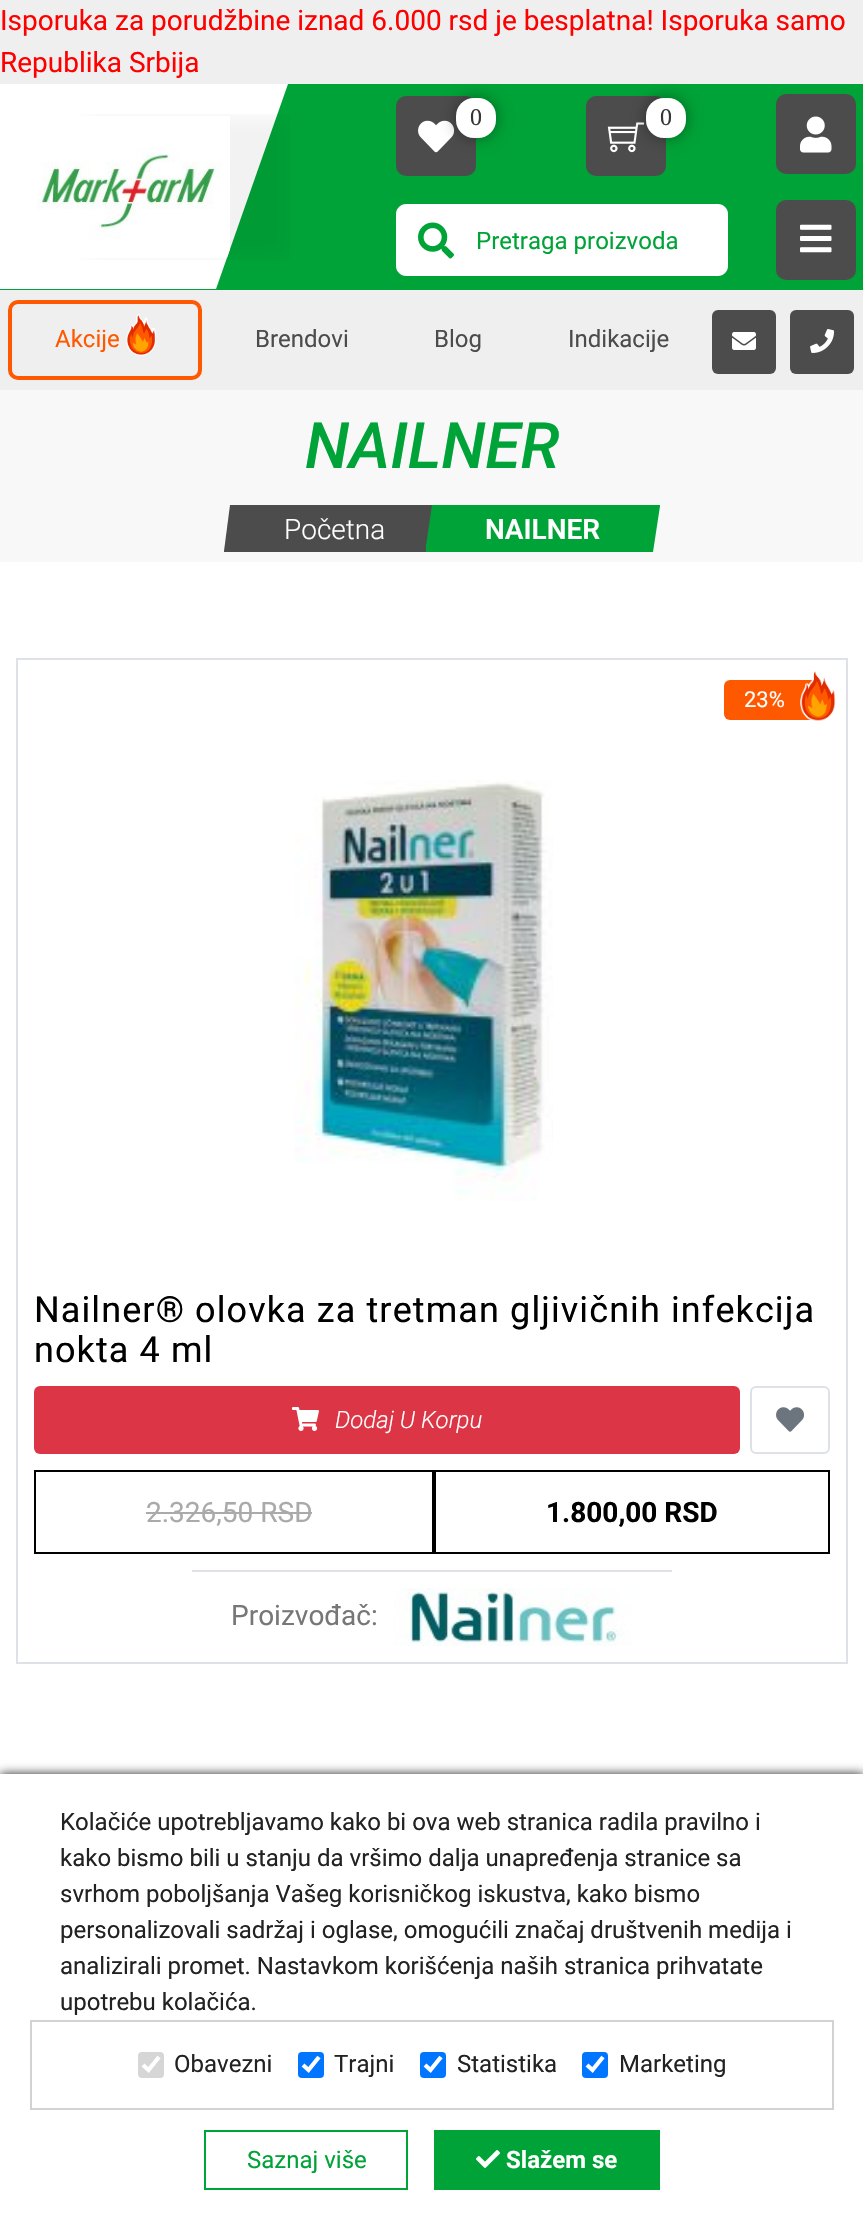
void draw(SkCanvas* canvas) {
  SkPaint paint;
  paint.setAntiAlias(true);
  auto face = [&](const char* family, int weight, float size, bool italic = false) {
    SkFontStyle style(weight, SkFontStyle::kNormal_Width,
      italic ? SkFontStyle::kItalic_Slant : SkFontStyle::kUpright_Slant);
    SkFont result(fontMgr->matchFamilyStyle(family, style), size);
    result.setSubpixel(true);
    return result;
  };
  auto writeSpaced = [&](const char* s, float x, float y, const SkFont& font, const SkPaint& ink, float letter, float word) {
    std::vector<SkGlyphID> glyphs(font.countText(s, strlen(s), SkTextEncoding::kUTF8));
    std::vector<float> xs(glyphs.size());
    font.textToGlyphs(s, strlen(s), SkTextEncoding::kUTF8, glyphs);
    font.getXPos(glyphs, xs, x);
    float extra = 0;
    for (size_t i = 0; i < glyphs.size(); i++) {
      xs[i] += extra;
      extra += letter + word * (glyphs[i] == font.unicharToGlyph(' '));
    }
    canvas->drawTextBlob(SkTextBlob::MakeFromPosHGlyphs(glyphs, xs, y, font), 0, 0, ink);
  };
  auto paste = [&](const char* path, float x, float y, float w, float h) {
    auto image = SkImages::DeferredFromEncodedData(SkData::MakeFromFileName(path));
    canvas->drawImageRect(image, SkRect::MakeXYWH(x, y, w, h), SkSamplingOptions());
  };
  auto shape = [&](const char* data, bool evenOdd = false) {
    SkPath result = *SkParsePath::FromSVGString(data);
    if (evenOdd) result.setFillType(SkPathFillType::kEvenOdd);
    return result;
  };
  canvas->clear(0xffffffff);
  paint.setColor(0xffefefef);
  canvas->drawRect(SkRect::MakeXYWH(0, 0, 863, 390), paint);
  paint.setColor(0xff00a337);
  canvas->drawRect(SkRect::MakeXYWH(0, 84, 863, 206), paint);
  paint.setColor(0xffffffff);
  canvas->drawPath(shape("M0 84V289H216L288 84Z"), paint);
  paste("img/1.png", 37, 114, 253, 146);
  paint.setColor(0xff4c4c4c);
  canvas->drawRoundRect(SkRect::MakeXYWH(396, 96, 80, 80), 10, 10, paint);
  paste("img/2.png", 418, 120, 37, 33);
  paint.setColor(0x66000000);
  paint.setMaskFilter(SkMaskFilter::MakeBlur(kNormal_SkBlurStyle, 8));
  canvas->drawRoundRect(SkRect::MakeXYWH(456, 98, 40, 40), 18, 18, paint);
  paint.setMaskFilter(nullptr);
  paint.setColor(0xffffffff);
  canvas->drawRoundRect(SkRect::MakeXYWH(456, 98, 40, 40), 18, 18, paint);
  paint.setColor(0xff4c4c4c);
  canvas->drawRoundRect(SkRect::MakeXYWH(586, 96, 80, 80), 10, 10, paint);
  paste("img/3.png", 607, 122, 37, 31);
  paint.setColor(0x66000000);
  paint.setMaskFilter(SkMaskFilter::MakeBlur(kNormal_SkBlurStyle, 8));
  canvas->drawRoundRect(SkRect::MakeXYWH(646, 98, 40, 40), 18, 18, paint);
  paint.setMaskFilter(nullptr);
  paint.setColor(0xffffffff);
  canvas->drawRoundRect(SkRect::MakeXYWH(646, 98, 40, 40), 18, 18, paint);
  paint.setColor(0xff4c4c4c);
  canvas->drawRoundRect(SkRect::MakeXYWH(776, 94, 80, 80), 10, 10, paint);
  paste("img/4.png", 800, 116, 32, 37);
  paint.setColor(0xffffffff);
  canvas->drawPath(shape("M406 204H466V276H406C400.5 276 396 271.5 396 266V214C396 208.5 400.5 204 406 204Z"), paint);
  paste("img/5.png", 418, 222, 36, 37);
  canvas->drawPath(shape("M466 204H718C723.5 204 728 208.5 728 214V266C728 271.5 723.5 276 718 276H466Z"), paint);
  paint.setColor(0xff4c4c4c);
  canvas->drawRoundRect(SkRect::MakeXYWH(776, 200, 80, 80), 10, 10, paint);
  paste("img/6.png", 800, 224, 32, 29);
  paint.setStroke(true);
  paint.setStrokeWidth(4);
  paint.setColor(0xfffe5900);
  canvas->drawRoundRect(SkRect::MakeXYWH(10, 302, 190, 76), 8, 8, paint);
  paste("img/7.png", 126, 314, 30, 42);
  paint.setStroke(false);
  paint.setColor(0xff4c4c4c);
  canvas->drawRoundRect(SkRect::MakeXYWH(712, 310, 64, 64), 6, 6, paint);
  paste("img/8.png", 732, 332, 24, 18);
  canvas->drawRoundRect(SkRect::MakeXYWH(790, 310, 64, 64), 6, 6, paint);
  paste("img/9.png", 810, 329, 25, 24);
  paint.setColor(0xfff8f8f8);
  canvas->drawRect(SkRect::MakeXYWH(0, 390, 863, 172), paint);
  paint.setColor(0xff4c4c4c);
  canvas->drawPath(shape("M230 505H445L439 552H224V551Z"), paint);
  paint.setColor(0xff00a337);
  canvas->drawPath(shape("M432 505H660V506L653 552H426V546Z"), paint);
  paint.setStroke(true);
  paint.setStrokeWidth(2);
  paint.setColor(0xffdee2e6);
  canvas->drawRect(SkRect::MakeXYWH(17, 659, 830, 1004), paint);
  paint.setStroke(false);
  paint.setColor(0xfffe5900);
  canvas->drawRoundRect(SkRect::MakeXYWH(724, 680, 102, 40), 6, 6, paint);
  paste("img/10.png", 800, 671, 36, 50);
  paste("img/11.png", 294, 780, 259, 421);
  paint.setColor(0xffdc3545);
  canvas->drawRoundRect(SkRect::MakeXYWH(34, 1386, 706, 68), 6, 6, paint);
  paste("img/12.png", 292, 1407, 27, 24);
  paint.setStroke(true);
  paint.setColor(0xffdee2e6);
  canvas->drawRoundRect(SkRect::MakeXYWH(751, 1387, 78, 66), 5, 5, paint);
  paste("img/13.png", 776, 1407, 29, 25);
  paint.setColor(0xff000000);
  canvas->drawRect(SkRect::MakeXYWH(35, 1471, 398, 82), paint);
  paint.setStroke(false);
  paint.setColor(0xffaaaaaa);
  canvas->drawRect(SkRect::MakeXYWH(146, 1512, 166, 2), paint);
  paint.setStroke(true);
  paint.setColor(0xff000000);
  canvas->drawRect(SkRect::MakeXYWH(435, 1471, 394, 82), paint);
  paint.setStroke(false);
  paint.setColor(0xffdee2e6);
  canvas->drawRect(SkRect::MakeXYWH(192, 1570, 480, 2), paint);
  paste("img/14.png", 394, 1588, 240, 58);
  paint.setColor(0xff222222);
  paint.setMaskFilter(SkMaskFilter::MakeBlur(kNormal_SkBlurStyle, 5));
  canvas->drawRect(SkRect::MakeXYWH(0, 1774, 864, 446), paint);
  paint.setMaskFilter(nullptr);
  paint.setColor(0xffffffff);
  canvas->drawRect(SkRect::MakeXYWH(0, 1774, 863, 445), paint);
  paint.setStroke(true);
  paint.setColor(0xffd2d2d2);
  canvas->drawRect(SkRect::MakeXYWH(31, 2021, 802, 88), paint);
  paint.setStroke(false);
  paint.setColor(0xffd6d6d6);
  canvas->drawRoundRect(SkRect::MakeXYWH(138, 2052, 26, 26), 4, 4, paint);
  paint.setStroke(true);
  paint.setStrokeWidth(4.2f);
  paint.setColor(0xffffffff);
  canvas->drawPath(shape("M143 2065L148.5 2070L159 2057"), paint);
  paint.setStroke(false);
  paint.setColor(0xff0075ff);
  canvas->drawRoundRect(SkRect::MakeXYWH(298, 2052, 26, 26), 4, 4, paint);
  paint.setStroke(true);
  paint.setColor(0xffffffff);
  canvas->drawPath(shape("M303 2065L308.5 2070L319 2057"), paint);
  paint.setStroke(false);
  paint.setColor(0xff0075ff);
  canvas->drawRoundRect(SkRect::MakeXYWH(420, 2052, 26, 26), 4, 4, paint);
  paint.setStroke(true);
  paint.setColor(0xffffffff);
  canvas->drawPath(shape("M425 2065L430.5 2070L441 2057"), paint);
  paint.setStroke(false);
  paint.setColor(0xff0075ff);
  canvas->drawRoundRect(SkRect::MakeXYWH(582, 2052, 26, 26), 4, 4, paint);
  paint.setStroke(true);
  paint.setColor(0xffffffff);
  canvas->drawPath(shape("M587 2065L592.5 2070L603 2057"), paint);
  paint.setStrokeWidth(2);
  paint.setColor(0xff00a337);
  canvas->drawRect(SkRect::MakeXYWH(205, 2131, 202, 58), paint);
  paint.setStroke(false);
  canvas->drawRect(SkRect::MakeXYWH(434, 2130, 226, 60), paint);
  paste("img/15.png", 476, 2150, 24, 18);
  auto f0 = face("Roboto", 400, 28);
  paint.setColor(0xffff0000);
  canvas->drawString("Isporuka za porudžbine iznad 6.000 rsd je besplatna! Isporuka samo", 0, 30, f0, paint);
  canvas->drawString("Republika Srbija", 0, 72, f0, paint);
  auto f1 = face("Liberation Serif", 400, 24);
  paint.setColor(0xff383536);
  canvas->drawString("0", 470, 125, f1, paint);
  canvas->drawString("0", 660, 125, f1, paint);
  auto f2 = face("Roboto", 400, 24);
  paint.setColor(0xff00a337);
  canvas->drawString("Pretraga proizvoda", 476, 249, f2, paint);
  paint.setColor(0xfffe5900);
  canvas->drawString("Akcije", 55, 347, f2, paint);
  paint.setColor(0xff4c4c4c);
  {
    const struct { const char* s; float x, y; } items[] = {
      {"Brendovi", 255, 347},
      {"Blog", 434, 347},
      {"Indikacije", 568, 347},
    };
    for (auto [s, x, y] : items) {
      canvas->drawString(s, x, y, f2, paint);
    }
  }
  auto f3 = face("Roboto", 500, 64, true);
  paint.setColor(0xff00a337);
  canvas->drawString("NAILNER", 305, 468, f3, paint);
  auto f4 = face("Roboto", 300, 28);
  paint.setColor(0xffffffff);
  canvas->drawString("Početna", 284, 539, f4, paint);
  auto f5 = face("Roboto", 600, 28);
  canvas->drawString("NAILNER", 485, 539, f5, paint);
  auto f6 = face("Roboto", 400, 22);
  canvas->drawString("23%", 744, 707, f6, paint);
  auto f7 = face("Roboto", 400, 36);
  paint.setColor(0xff000000);
  writeSpaced("Nailner® olovka za tretman gljivičnih infekcija", 34, 1322, f7, paint, 1.1f, 0);
  writeSpaced("nokta 4 ml", 34, 1362, f7, paint, 1.1f, 0);
  auto f8 = face("Roboto", 300, 24, true);
  paint.setColor(0xffffffff);
  canvas->drawString("Dodaj U Korpu", 335, 1428, f8, paint);
  paint.setColor(0xffaaaaaa);
  canvas->drawString("2.326,50 RSD", 146, 1522, f0, paint);
  auto f9 = face("Roboto", 700, 28);
  paint.setColor(0xff000000);
  canvas->drawString("1.800,00 RSD", 546, 1522, f9, paint);
  paint.setColor(0xff777777);
  canvas->drawString("Proizvođač:", 231, 1625, f0, paint);
  paint.setColor(0xff222222);
  {
    const struct { const char* s; float x, y; } items[] = {
      {"Kolačiće upotrebljavamo kako bi ova web stranica radila pravilno i", 60, 1830},
      {"kako bismo bili u stanju da vršimo dalja unapređenja stranice sa", 60, 1866},
      {"svrhom poboljšanja Vašeg korisničkog iskustva, kako bismo", 60, 1902},
      {"personalizovali sadržaj i oglase, omogućili značaj društvenih medija i", 60, 1938},
      {"analizirali promet. Nastavkom korišćenja naših stranica prihvatate", 60, 1974},
      {"upotrebu kolačića.", 60, 2010},
      {"Obavezni", 174, 2072},
      {"Trajni", 334, 2072},
      {"Statistika", 457, 2072},
      {"Marketing", 619, 2072},
    };
    for (auto [s, x, y] : items) {
      canvas->drawString(s, x, y, f2, paint);
    }
  }
  paint.setColor(0xff00a337);
  canvas->drawString("Saznaj više", 247, 2168, f2, paint);
  auto f10 = face("Roboto", 700, 24);
  paint.setColor(0xffffffff);
  canvas->drawString("Slažem se", 506, 2168, f10, paint);
}
